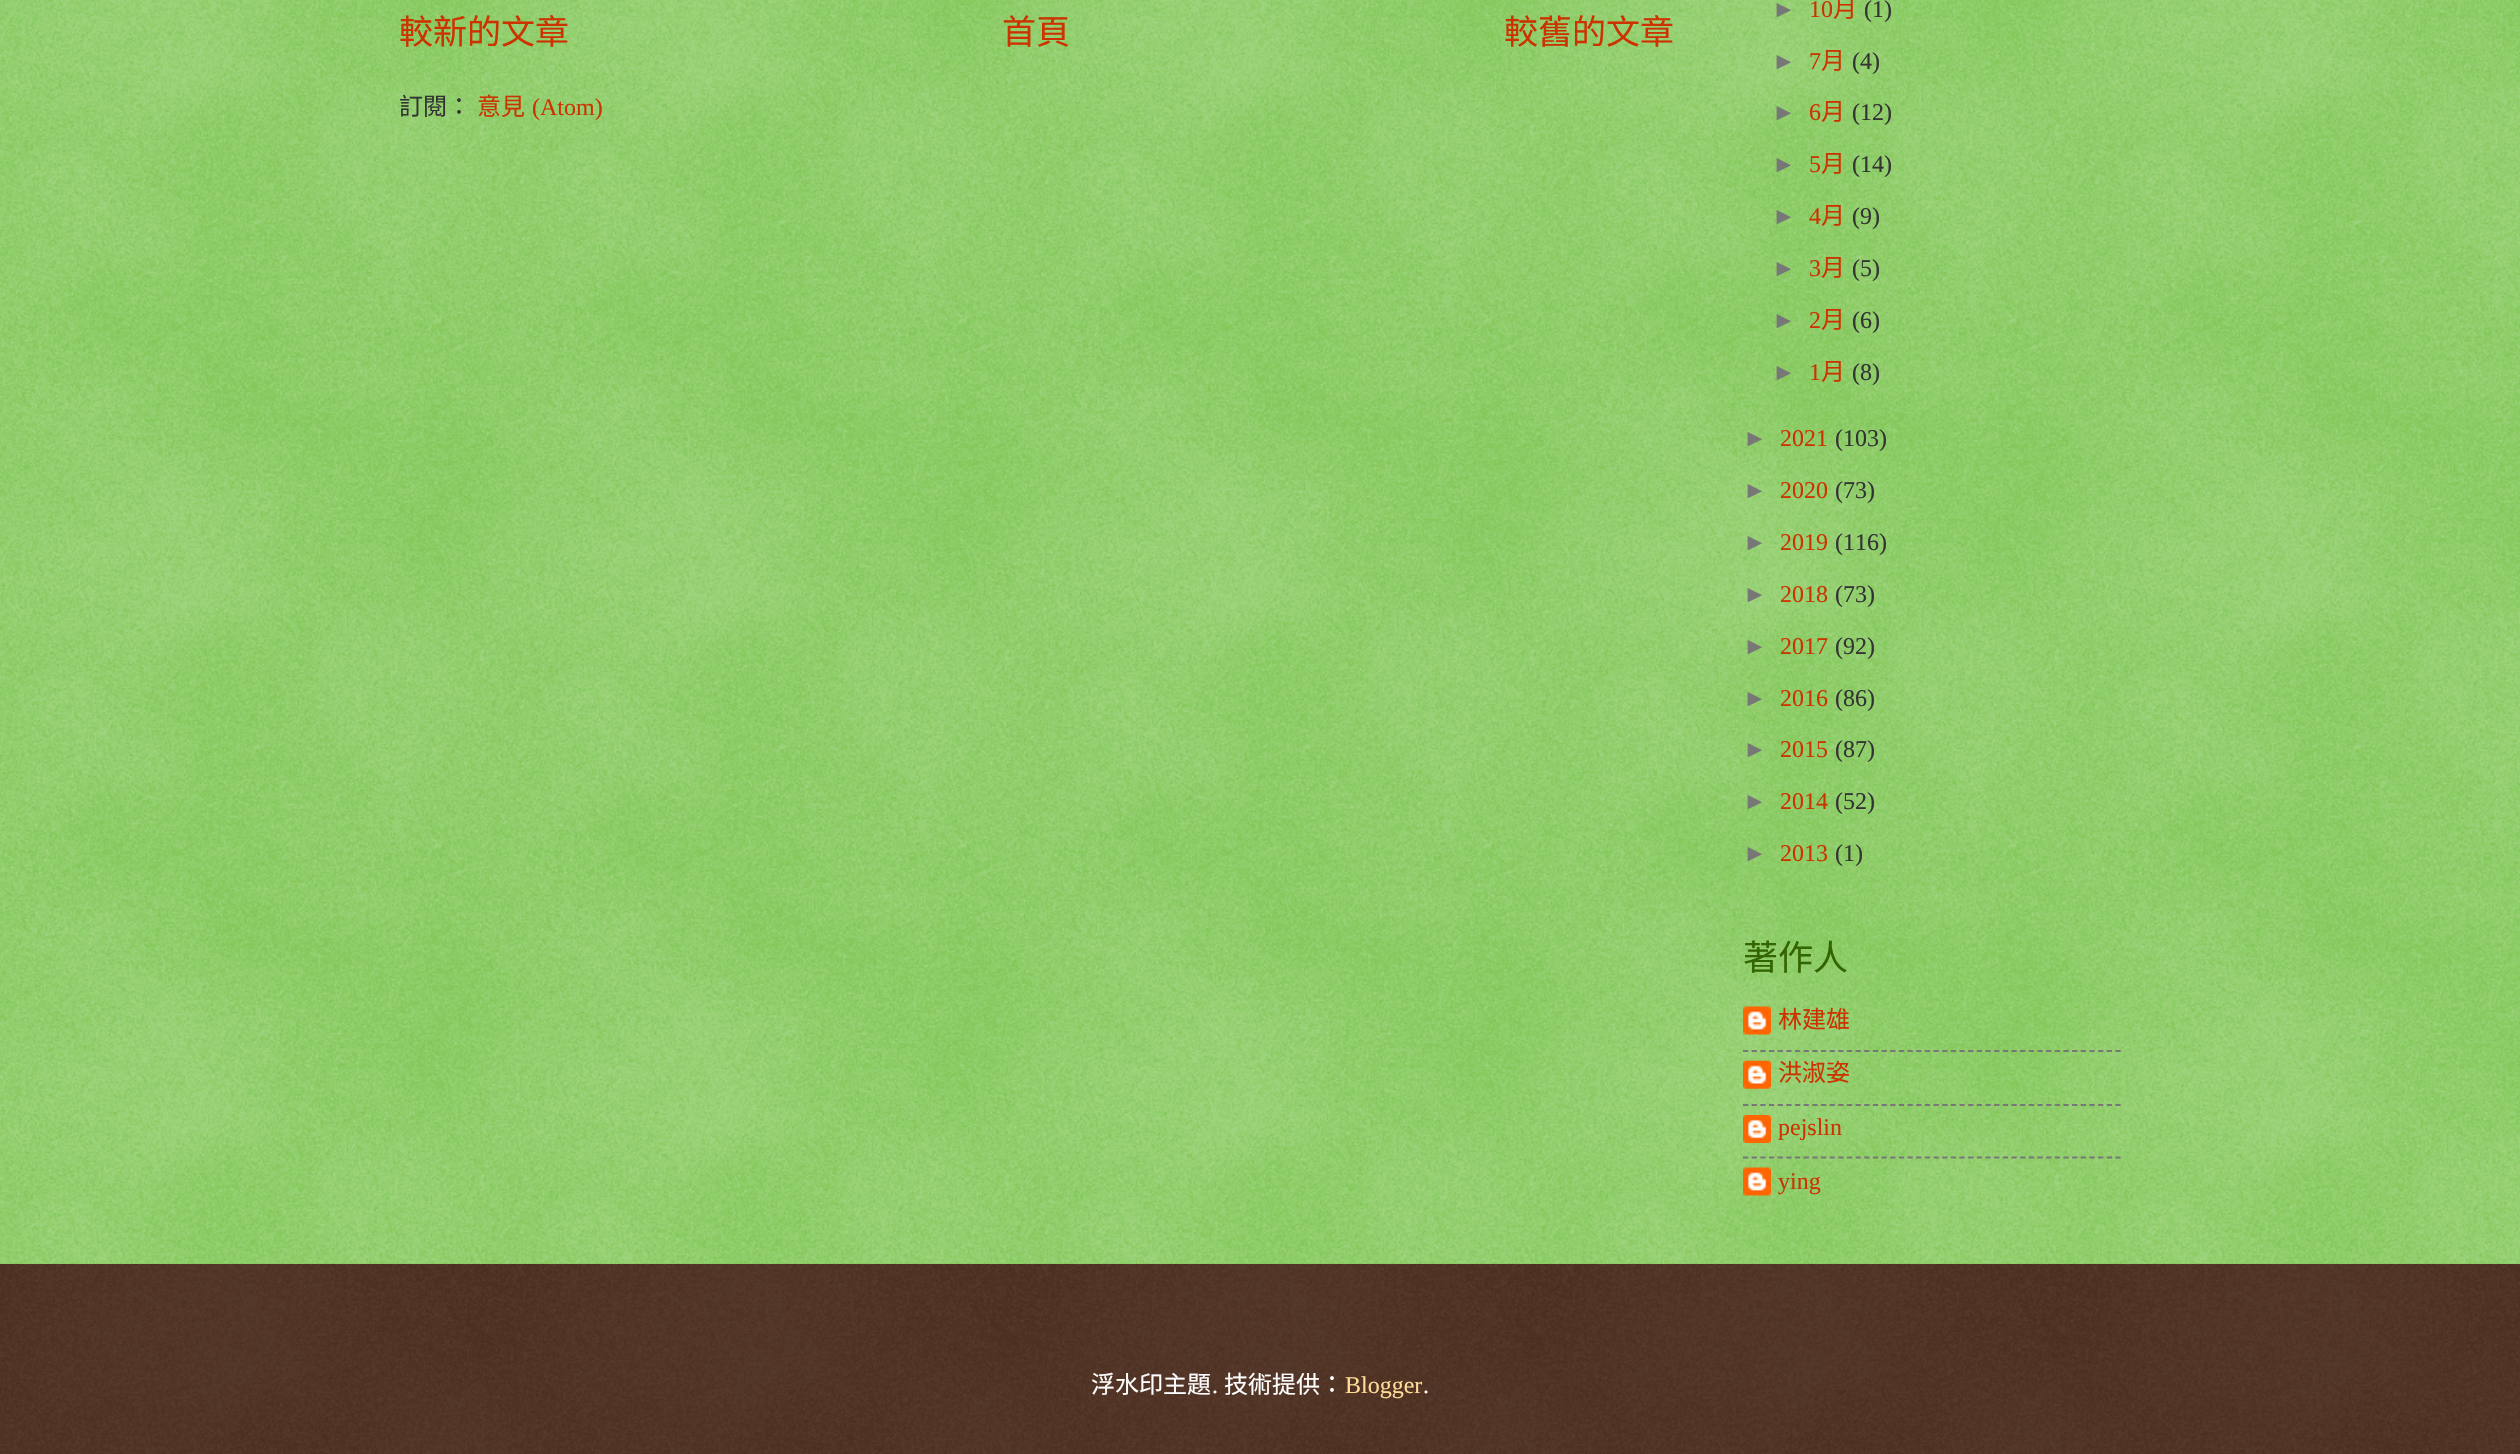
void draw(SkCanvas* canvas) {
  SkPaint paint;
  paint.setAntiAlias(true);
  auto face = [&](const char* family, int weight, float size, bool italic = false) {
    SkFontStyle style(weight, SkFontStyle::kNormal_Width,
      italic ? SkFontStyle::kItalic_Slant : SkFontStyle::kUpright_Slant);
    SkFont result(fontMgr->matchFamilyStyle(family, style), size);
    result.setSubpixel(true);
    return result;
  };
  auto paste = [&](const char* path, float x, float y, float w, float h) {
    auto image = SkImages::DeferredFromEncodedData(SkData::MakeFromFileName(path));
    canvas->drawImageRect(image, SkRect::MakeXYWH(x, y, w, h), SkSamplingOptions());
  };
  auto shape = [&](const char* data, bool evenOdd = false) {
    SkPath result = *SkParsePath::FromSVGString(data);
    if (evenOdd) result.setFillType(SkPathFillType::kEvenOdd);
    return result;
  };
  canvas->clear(0xff66bb33);
  paste("img/1.png", 0, 0, 2520, 1264);
  paste("img/2.png", 1743, 1006, 28, 29);
  paint.setStroke(true);
  paint.setStrokeWidth(1.8f);
  paint.setColor(0xff777777);
  paint.setPathEffect(SkDashPathEffect::Make({{5.25f, 3.41f}}, 0));
  canvas->drawPath(shape("M1743 1051H2121"), paint);
  paint.setPathEffect(nullptr);
  paste("img/3.png", 1743, 1060, 28, 29);
  paint.setPathEffect(SkDashPathEffect::Make({{5.25f, 3.41f}}, 0));
  canvas->drawPath(shape("M1743 1105H2121"), paint);
  paint.setPathEffect(nullptr);
  paste("img/4.png", 1743, 1115, 28, 28);
  paint.setPathEffect(SkDashPathEffect::Make({{5.25f, 3.41f}}, 0));
  canvas->drawPath(shape("M1743 1157.5H2121"), paint);
  paint.setPathEffect(nullptr);
  paste("img/5.png", 1743, 1167, 28, 29);
  paint.setStroke(false);
  paint.setColor(0xff331100);
  canvas->drawRect(SkRect::MakeXYWH(0, 1264, 2520, 190), paint);
  paste("img/6.png", 0, 1263, 2520, 191);
  auto f0 = face("Noto Sans CJK TC", 400, 34);
  paint.setColor(0xffcc3300);
  {
    const struct { const char* s; float x, y; } items[] = {
      {"較新的文章", 399, 44},
      {"首頁", 1002, 44},
      {"較舊的文章", 1504, 44},
    };
    for (auto [s, x, y] : items) {
      canvas->drawString(s, x, y, f0, paint);
    }
  }
  auto f1 = face("Noto Sans CJK TC", 400, 24);
  paint.setColor(0xff333333);
  canvas->drawString("訂閱：", 399, 115, f1, paint);
  paint.setColor(0xffcc3300);
  canvas->drawString("意見", 477, 115, f1, paint);
  auto f2 = face("Liberation Serif", 400, 24);
  canvas->drawString("(Atom)", 532, 115, f2, paint);
  auto f3 = face("Liberation Sans", 400, 24);
  paint.setColor(0xff777777);
  canvas->drawString("►", 1772, 17, f3, paint);
  paint.setColor(0xffcc3300);
  canvas->drawString("10", 1809, 17, f2, paint);
  canvas->drawString("月", 1833, 17, f1, paint);
  paint.setColor(0xff333333);
  canvas->drawString("(1)", 1864, 17, f2, paint);
  paint.setColor(0xff777777);
  canvas->drawString("►", 1772, 69, f3, paint);
  paint.setColor(0xffcc3300);
  canvas->drawString("7", 1809, 69, f2, paint);
  canvas->drawString("月", 1821, 69, f1, paint);
  paint.setColor(0xff333333);
  canvas->drawString("(4)", 1852, 69, f2, paint);
  paint.setColor(0xff777777);
  canvas->drawString("►", 1772, 120, f3, paint);
  paint.setColor(0xffcc3300);
  canvas->drawString("6", 1809, 120, f2, paint);
  canvas->drawString("月", 1821, 120, f1, paint);
  paint.setColor(0xff333333);
  canvas->drawString("(12)", 1852, 120, f2, paint);
  paint.setColor(0xff777777);
  canvas->drawString("►", 1772, 172, f3, paint);
  paint.setColor(0xffcc3300);
  canvas->drawString("5", 1809, 172, f2, paint);
  canvas->drawString("月", 1821, 172, f1, paint);
  paint.setColor(0xff333333);
  canvas->drawString("(14)", 1852, 172, f2, paint);
  paint.setColor(0xff777777);
  canvas->drawString("►", 1772, 224, f3, paint);
  paint.setColor(0xffcc3300);
  canvas->drawString("4", 1809, 224, f2, paint);
  canvas->drawString("月", 1821, 224, f1, paint);
  paint.setColor(0xff333333);
  canvas->drawString("(9)", 1852, 224, f2, paint);
  paint.setColor(0xff777777);
  canvas->drawString("►", 1772, 276, f3, paint);
  paint.setColor(0xffcc3300);
  canvas->drawString("3", 1809, 276, f2, paint);
  canvas->drawString("月", 1821, 276, f1, paint);
  paint.setColor(0xff333333);
  canvas->drawString("(5)", 1852, 276, f2, paint);
  paint.setColor(0xff777777);
  canvas->drawString("►", 1772, 328, f3, paint);
  paint.setColor(0xffcc3300);
  canvas->drawString("2", 1809, 328, f2, paint);
  canvas->drawString("月", 1821, 328, f1, paint);
  paint.setColor(0xff333333);
  canvas->drawString("(6)", 1852, 328, f2, paint);
  paint.setColor(0xff777777);
  canvas->drawString("►", 1772, 380, f3, paint);
  paint.setColor(0xffcc3300);
  canvas->drawString("1", 1809, 380, f2, paint);
  canvas->drawString("月", 1821, 380, f1, paint);
  paint.setColor(0xff333333);
  canvas->drawString("(8)", 1852, 380, f2, paint);
  paint.setColor(0xff777777);
  canvas->drawString("►", 1743, 446, f3, paint);
  paint.setColor(0xffcc3300);
  canvas->drawString("2021", 1780, 446, f2, paint);
  paint.setColor(0xff333333);
  canvas->drawString("(103)", 1835, 446, f2, paint);
  paint.setColor(0xff777777);
  canvas->drawString("►", 1743, 498, f3, paint);
  paint.setColor(0xffcc3300);
  canvas->drawString("2020", 1780, 498, f2, paint);
  paint.setColor(0xff333333);
  canvas->drawString("(73)", 1835, 498, f2, paint);
  paint.setColor(0xff777777);
  canvas->drawString("►", 1743, 550, f3, paint);
  paint.setColor(0xffcc3300);
  canvas->drawString("2019", 1780, 550, f2, paint);
  paint.setColor(0xff333333);
  canvas->drawString("(116)", 1835, 550, f2, paint);
  paint.setColor(0xff777777);
  canvas->drawString("►", 1743, 602, f3, paint);
  paint.setColor(0xffcc3300);
  canvas->drawString("2018", 1780, 602, f2, paint);
  paint.setColor(0xff333333);
  canvas->drawString("(73)", 1835, 602, f2, paint);
  paint.setColor(0xff777777);
  canvas->drawString("►", 1743, 654, f3, paint);
  paint.setColor(0xffcc3300);
  canvas->drawString("2017", 1780, 654, f2, paint);
  paint.setColor(0xff333333);
  canvas->drawString("(92)", 1835, 654, f2, paint);
  paint.setColor(0xff777777);
  canvas->drawString("►", 1743, 706, f3, paint);
  paint.setColor(0xffcc3300);
  canvas->drawString("2016", 1780, 706, f2, paint);
  paint.setColor(0xff333333);
  canvas->drawString("(86)", 1835, 706, f2, paint);
  paint.setColor(0xff777777);
  canvas->drawString("►", 1743, 757, f3, paint);
  paint.setColor(0xffcc3300);
  canvas->drawString("2015", 1780, 757, f2, paint);
  paint.setColor(0xff333333);
  canvas->drawString("(87)", 1835, 757, f2, paint);
  paint.setColor(0xff777777);
  canvas->drawString("►", 1743, 809, f3, paint);
  paint.setColor(0xffcc3300);
  canvas->drawString("2014", 1780, 809, f2, paint);
  paint.setColor(0xff333333);
  canvas->drawString("(52)", 1835, 809, f2, paint);
  paint.setColor(0xff777777);
  canvas->drawString("►", 1743, 861, f3, paint);
  paint.setColor(0xffcc3300);
  canvas->drawString("2013", 1780, 861, f2, paint);
  paint.setColor(0xff333333);
  canvas->drawString("(1)", 1835, 861, f2, paint);
  auto f4 = face("Noto Sans CJK TC", 400, 35);
  paint.setColor(0xff336600);
  canvas->drawString("著作人", 1743, 970, f4, paint);
  paint.setColor(0xffcc3300);
  canvas->drawString("林建雄", 1778, 1028, f1, paint);
  canvas->drawString("洪淑姿", 1778, 1081, f1, paint);
  canvas->drawString("pejslin", 1778, 1135, f2, paint);
  canvas->drawString("ying", 1778, 1189, f2, paint);
  paint.setColor(0xffffffff);
  canvas->drawString("浮水印主題", 1091, 1393, f1, paint);
  canvas->drawString(".", 1212, 1393, f2, paint);
  canvas->drawString("技術提供：", 1224, 1393, f1, paint);
  paint.setColor(0xffffdd99);
  canvas->drawString("Blogger", 1345, 1393, f2, paint);
  paint.setColor(0xffffffff);
  canvas->drawString(".", 1423, 1393, f2, paint);
}
